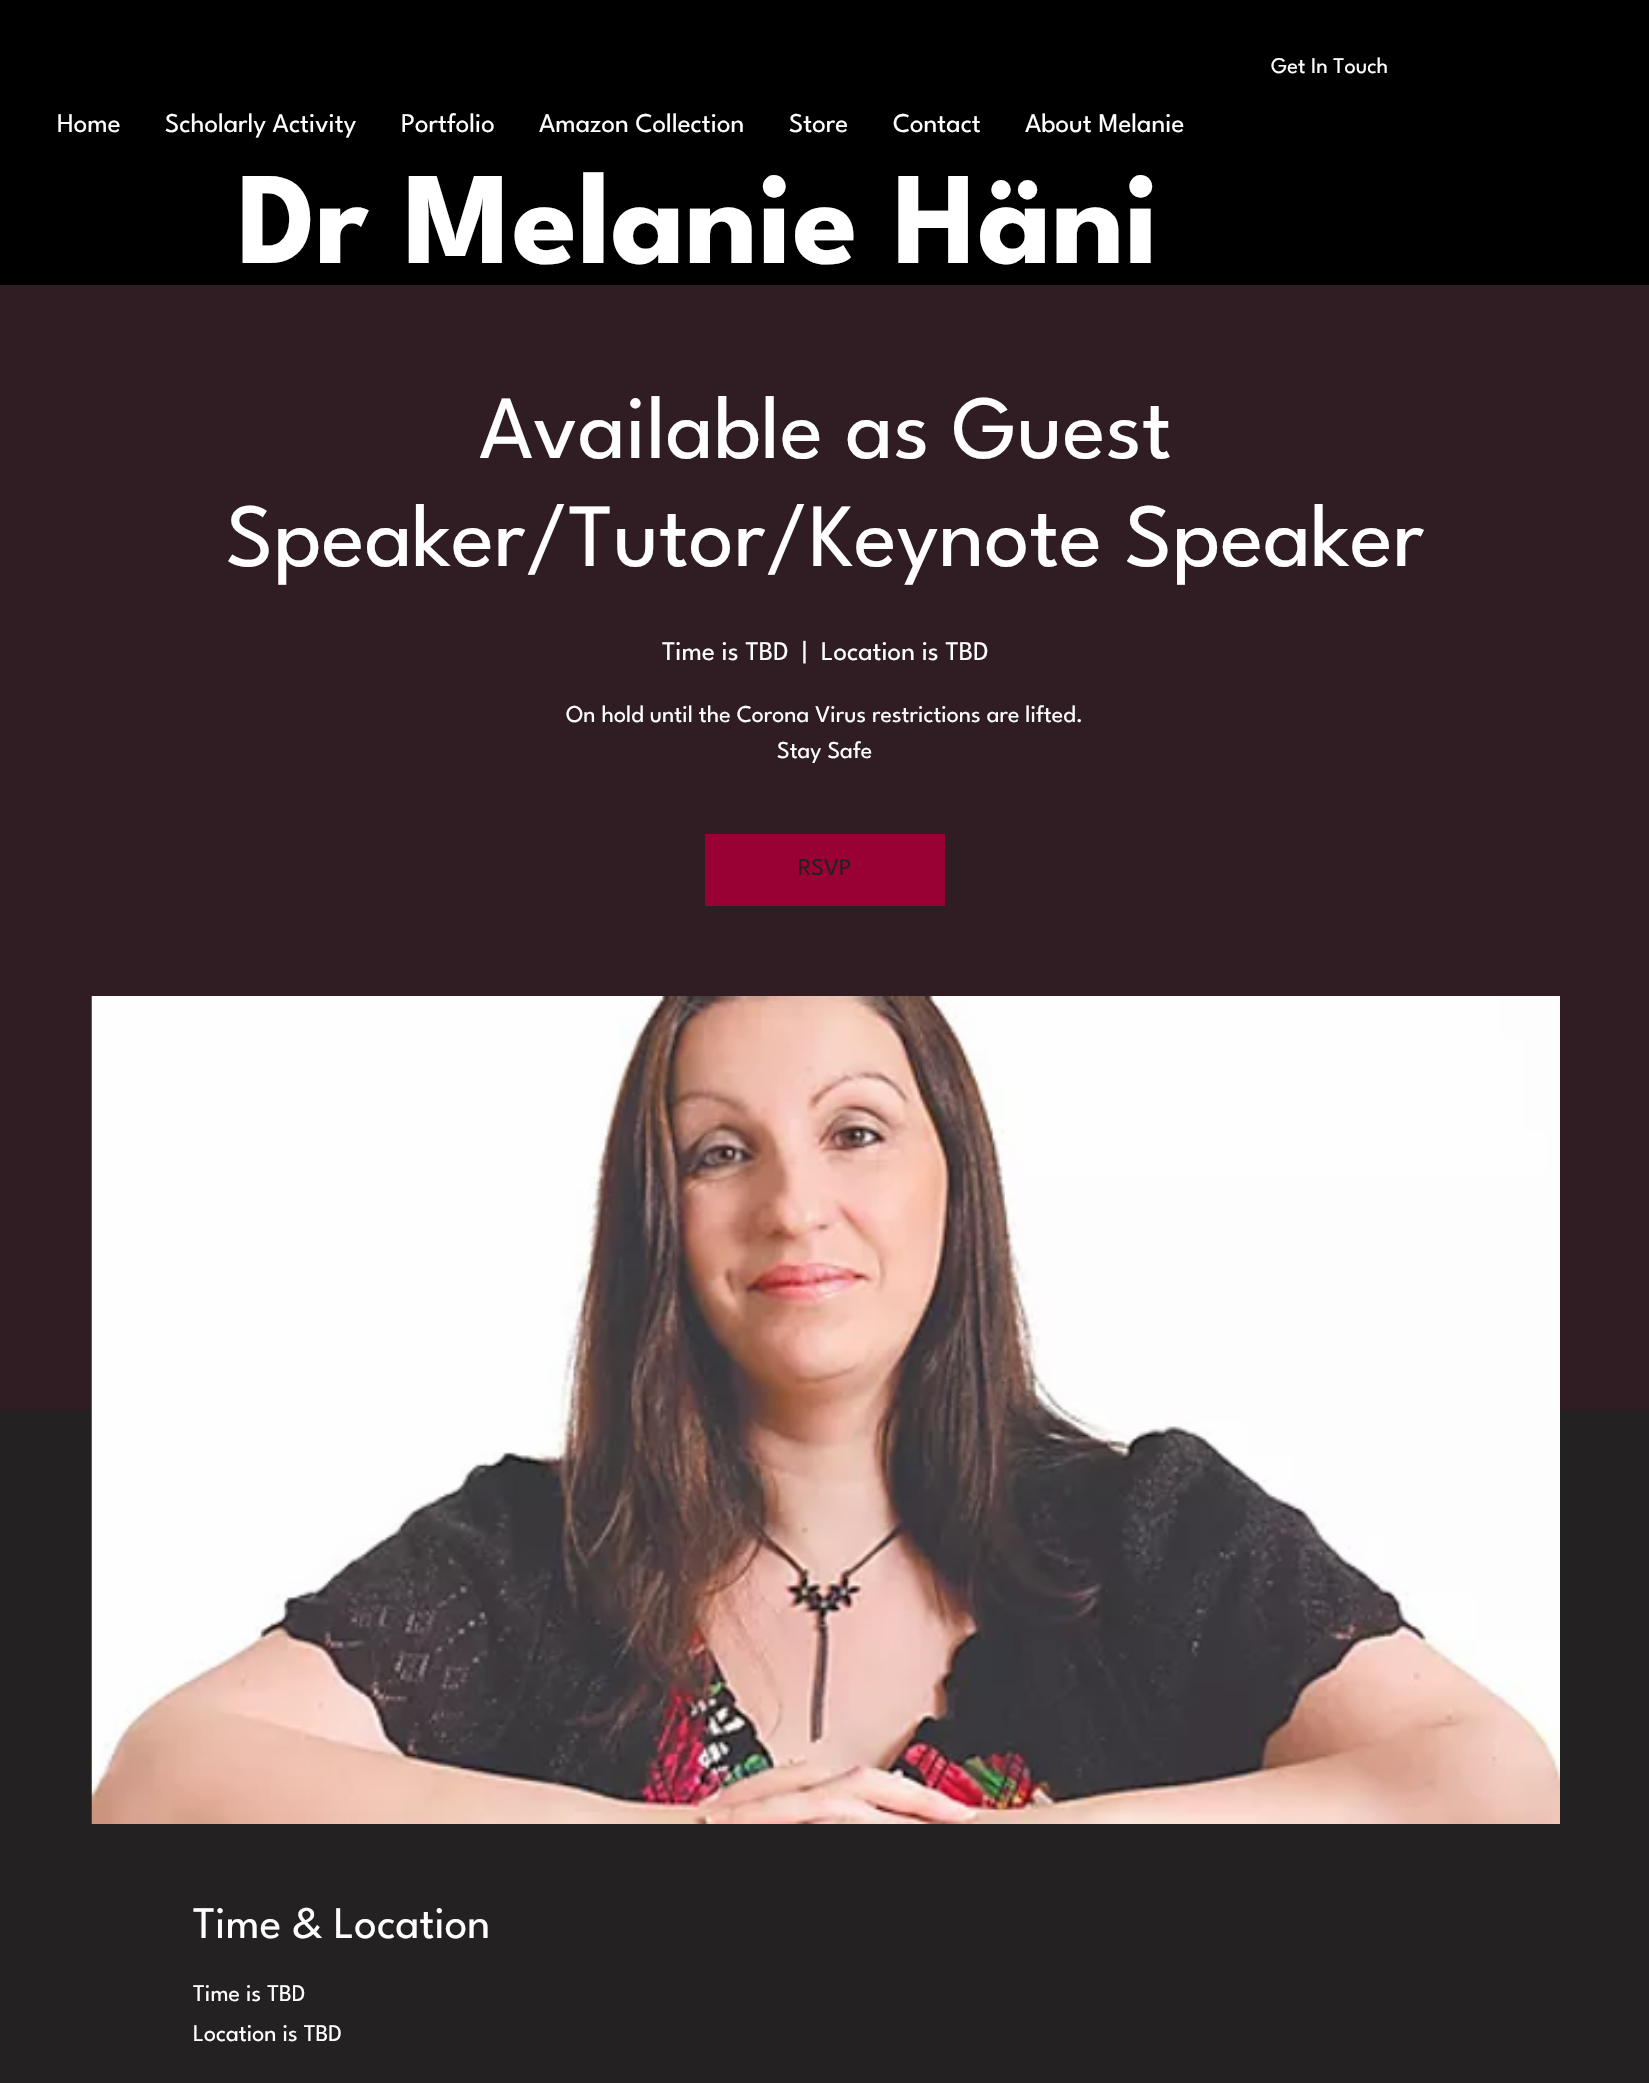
void draw(SkCanvas* canvas) {
  SkPaint paint;
  paint.setAntiAlias(true);
  auto face = [&](const char* family, int weight, float size, bool italic = false) {
    SkFontStyle style(weight, SkFontStyle::kNormal_Width,
      italic ? SkFontStyle::kItalic_Slant : SkFontStyle::kUpright_Slant);
    SkFont result(fontMgr->matchFamilyStyle(family, style), size);
    result.setSubpixel(true);
    return result;
  };
  auto paste = [&](const char* path, float x, float y, float w, float h) {
    auto image = SkImages::DeferredFromEncodedData(SkData::MakeFromFileName(path));
    canvas->drawImageRect(image, SkRect::MakeXYWH(x, y, w, h), SkSamplingOptions());
  };
  canvas->clear(0xff232122);
  {
    const struct { float x, y, w, h; SkColor color; } items[] = {
      {0, 0, 1649, 285, 0xff000000},
      {0, 285, 1649, 1125, 0xff2f1d23},
      {705, 834, 240, 72, 0xff990033},
    };
    for (auto [x, y, w, h, color] : items) {
      paint.setColor(color);
      canvas->drawRect(SkRect::MakeXYWH(x, y, w, h), paint);
    }
  }
  paste("img/1.png", 91, 996, 1469, 828);
  auto f0 = face("League Spartan", 400, 22.5f);
  paint.setColor(0xffffffff);
  canvas->drawString("Get In Touch", 1271, 73, f0, paint);
  auto f1 = face("League Spartan", 400, 27);
  {
    const struct { const char* s; float x, y; } items[] = {
      {"Home", 57, 132},
      {"Scholarly Activity", 165, 132},
      {"Portfolio", 401, 132},
      {"Amazon Collection", 539, 132},
      {"Store", 789, 132},
      {"Contact", 893, 132},
      {"About Melanie", 1025, 132},
    };
    for (auto [s, x, y] : items) {
      canvas->drawString(s, x, y, f1, paint);
    }
  }
  auto f2 = face("League Spartan", 700, 132);
  canvas->drawString("Dr Melanie Häni", 237, 263, f2, paint);
  auto f3 = face("League Spartan", 400, 90);
  canvas->drawString("Available as Guest", 479, 458, f3, paint);
  canvas->drawString("Speaker/Tutor/Keynote Speaker", 226, 566, f3, paint);
  {
    const struct { const char* s; float x, y; } items[] = {
      {"Time is TBD", 662, 660},
      {"|", 802, 660},
      {"Location is TBD", 821, 660},
    };
    for (auto [s, x, y] : items) {
      canvas->drawString(s, x, y, f1, paint);
    }
  }
  auto f4 = face("League Spartan", 400, 24);
  canvas->drawString("On hold until the Corona Virus restrictions are lifted.", 566, 722, f4, paint);
  canvas->drawString("Stay Safe", 777, 758, f4, paint);
  paint.setColor(0xff232122);
  canvas->drawString("RSVP", 798, 875, f4, paint);
  auto f5 = face("League Spartan", 400, 45);
  paint.setColor(0xffffffff);
  canvas->drawString("Time & Location", 193, 1938, f5, paint);
  canvas->drawString("Time is TBD", 193, 2001, f4, paint);
  canvas->drawString("Location is TBD", 193, 2041, f4, paint);
}
